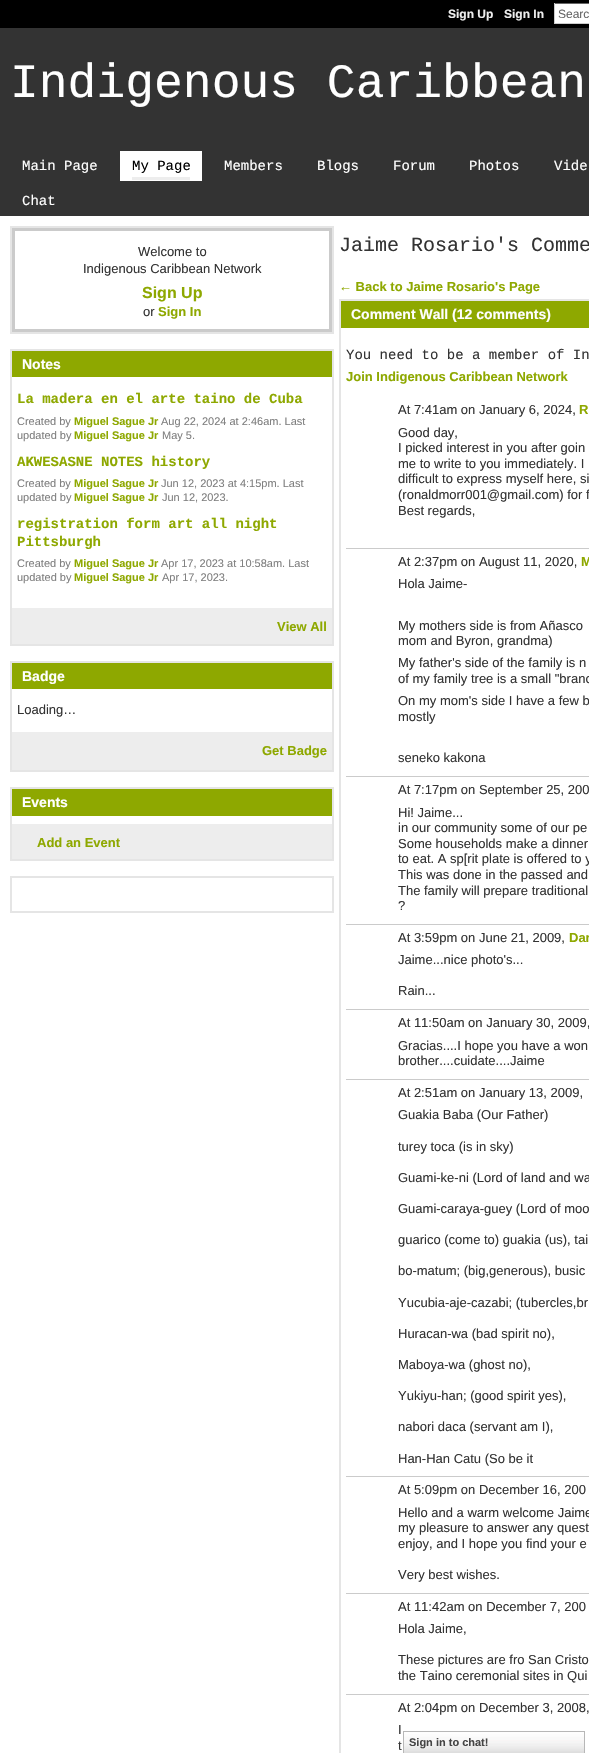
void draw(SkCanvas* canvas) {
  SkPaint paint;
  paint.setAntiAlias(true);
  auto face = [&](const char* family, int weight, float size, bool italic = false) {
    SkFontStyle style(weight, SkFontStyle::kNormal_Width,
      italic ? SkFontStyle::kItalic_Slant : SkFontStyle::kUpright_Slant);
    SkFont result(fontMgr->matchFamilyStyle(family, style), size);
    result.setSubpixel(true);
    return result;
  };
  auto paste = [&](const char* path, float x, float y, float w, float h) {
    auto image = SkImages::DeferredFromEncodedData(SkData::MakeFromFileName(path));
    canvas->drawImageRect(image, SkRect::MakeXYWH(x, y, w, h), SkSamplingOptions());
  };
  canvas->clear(0xff000000);
  {
    const struct { float x, y, w, h; SkColor color; } items[] = {
      {555, 4, 34, 19, 0xffffffff},
      {554, 3, 35, 1, 0xff666666},
      {554, 23, 35, 1, 0xffcccccc},
      {554, 3, 1, 21, 0xffcccccc},
      {0, 28, 589, 188, 0xff333333},
      {120, 151, 82, 30, 0xffffffff},
      {132, 177, 58, 3, 0xffededed},
      {0, 216, 589, 1537, 0xffffffff},
    };
    for (auto [x, y, w, h, color] : items) {
      paint.setColor(color);
      canvas->drawRect(SkRect::MakeXYWH(x, y, w, h), paint);
    }
  }
  paint.setStroke(true);
  paint.setStrokeWidth(2);
  paint.setColor(0xffe5e5e5);
  canvas->drawRect(SkRect::MakeXYWH(11, 227, 322, 106), paint);
  paint.setStrokeWidth(3);
  paint.setColor(0xffcbcbcb);
  canvas->drawRect(SkRect::MakeXYWH(13.5f, 229.5f, 317, 101), paint);
  paint.setStrokeWidth(2);
  paint.setColor(0xffe5e5e5);
  canvas->drawRect(SkRect::MakeXYWH(11, 350, 322, 295), paint);
  paint.setStroke(false);
  paint.setColor(0xff8ea800);
  canvas->drawRect(SkRect::MakeXYWH(12, 351, 320, 26), paint);
  paint.setColor(0xffededed);
  canvas->drawRect(SkRect::MakeXYWH(12, 608, 320, 36), paint);
  paint.setStroke(true);
  paint.setColor(0xffe5e5e5);
  canvas->drawRect(SkRect::MakeXYWH(11, 662, 322, 109), paint);
  paint.setStroke(false);
  paint.setColor(0xff8ea800);
  canvas->drawRect(SkRect::MakeXYWH(12, 663, 320, 26), paint);
  paint.setColor(0xffededed);
  canvas->drawRect(SkRect::MakeXYWH(12, 732, 320, 38), paint);
  paint.setStroke(true);
  paint.setColor(0xffe5e5e5);
  canvas->drawRect(SkRect::MakeXYWH(11, 788, 322, 72), paint);
  paint.setStroke(false);
  paint.setColor(0xff8ea800);
  canvas->drawRect(SkRect::MakeXYWH(12, 789, 320, 27), paint);
  paint.setColor(0xffededed);
  canvas->drawRect(SkRect::MakeXYWH(12, 824, 320, 35), paint);
  paint.setStroke(true);
  paint.setColor(0xffe5e5e5);
  canvas->drawRect(SkRect::MakeXYWH(11, 877, 322, 35), paint);
  canvas->drawRect(SkRect::MakeXYWH(340, 300, 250, 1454), paint);
  paint.setStroke(false);
  {
    const struct { float x, y, w, h; SkColor color; } items[] = {
      {341, 301, 248, 27, 0xff8ea800},
      {346, 548, 243, 1, 0xffcbcbcb},
      {346, 776, 243, 1, 0xffcbcbcb},
      {346, 924, 243, 1, 0xffcbcbcb},
      {346, 1009, 243, 1, 0xffcbcbcb},
      {346, 1079, 243, 1, 0xffcbcbcb},
      {346, 1476, 243, 1, 0xffcbcbcb},
      {346, 1593, 243, 1, 0xffcbcbcb},
      {346, 1694, 243, 1, 0xffcbcbcb},
    };
    for (auto [x, y, w, h, color] : items) {
      paint.setColor(color);
      canvas->drawRect(SkRect::MakeXYWH(x, y, w, h), paint);
    }
  }
  paste("img/1.png", 404, 1732, 180, 21);
  paint.setStroke(true);
  paint.setStrokeWidth(1);
  paint.setColor(0xffb7b7b7);
  canvas->drawRect(SkRect::MakeXYWH(403.5f, 1731.5f, 181, 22), paint);
  auto f0 = face("Liberation Sans", 700, 12);
  paint.setStroke(false);
  paint.setColor(0xffeeeeee);
  canvas->drawString("Sign Up", 448, 18, f0, paint);
  canvas->drawString("Sign In", 504, 18, f0, paint);
  auto f1 = face("Liberation Sans", 400, 12);
  paint.setColor(0xff666666);
  canvas->drawString("Searc", 558, 18, f1, paint);
  auto f2 = face("Liberation Mono", 400, 48);
  paint.setColor(0xffffffff);
  canvas->drawString("Indigenous Caribbean", 10, 97, f2, paint);
  auto f3 = face("Liberation Mono", 400, 14);
  canvas->drawString("Main Page", 22, 170, f3, paint);
  paint.setColor(0xff000000);
  canvas->drawString("My Page", 132, 170, f3, paint);
  paint.setColor(0xffffffff);
  {
    const struct { const char* s; float x, y; } items[] = {
      {"Members", 224, 170},
      {"Blogs", 317, 170},
      {"Forum", 393, 170},
      {"Photos", 469, 170},
      {"Vide", 554, 170},
      {"Chat", 22, 205},
    };
    for (auto [s, x, y] : items) {
      canvas->drawString(s, x, y, f3, paint);
    }
  }
  auto f4 = face("Liberation Sans", 400, 13);
  paint.setColor(0xff333333);
  canvas->drawString("Welcome to", 138, 256, f4, paint);
  canvas->drawString("Indigenous Caribbean Network", 83, 273, f4, paint);
  auto f5 = face("Liberation Sans", 700, 16);
  paint.setColor(0xff8ea800);
  canvas->drawString("Sign Up", 142, 298, f5, paint);
  paint.setColor(0xff333333);
  canvas->drawString("or", 143, 316, f4, paint);
  auto f6 = face("Liberation Sans", 700, 13);
  paint.setColor(0xff8ea800);
  canvas->drawString("Sign In", 158, 316, f6, paint);
  auto f7 = face("Liberation Sans", 700, 14);
  paint.setColor(0xffffffff);
  canvas->drawString("Notes", 22, 369, f7, paint);
  auto f8 = face("Liberation Mono", 700, 14);
  paint.setColor(0xff8ea800);
  canvas->drawString("La madera en el arte taino de Cuba", 17, 403, f8, paint);
  auto f9 = face("Liberation Sans", 400, 11);
  paint.setColor(0xff7f7f7f);
  canvas->drawString("Created by", 17, 425, f9, paint);
  auto f10 = face("Liberation Sans", 700, 11);
  paint.setColor(0xff8ea800);
  canvas->drawString("Miguel Sague Jr", 74, 425, f10, paint);
  paint.setColor(0xff7f7f7f);
  canvas->drawString("Aug 22, 2024 at 2:46am. Last", 161, 425, f9, paint);
  canvas->drawString("updated by", 17, 439, f9, paint);
  paint.setColor(0xff8ea800);
  canvas->drawString("Miguel Sague Jr", 74, 439, f10, paint);
  paint.setColor(0xff7f7f7f);
  canvas->drawString("May 5.", 162, 439, f9, paint);
  paint.setColor(0xff8ea800);
  canvas->drawString("AKWESASNE NOTES history", 17, 466, f8, paint);
  paint.setColor(0xff7f7f7f);
  canvas->drawString("Created by", 17, 487, f9, paint);
  paint.setColor(0xff8ea800);
  canvas->drawString("Miguel Sague Jr", 74, 487, f10, paint);
  paint.setColor(0xff7f7f7f);
  canvas->drawString("Jun 12, 2023 at 4:15pm. Last", 161, 487, f9, paint);
  canvas->drawString("updated by", 17, 501, f9, paint);
  paint.setColor(0xff8ea800);
  canvas->drawString("Miguel Sague Jr", 74, 501, f10, paint);
  paint.setColor(0xff7f7f7f);
  canvas->drawString("Jun 12, 2023.", 162, 501, f9, paint);
  paint.setColor(0xff8ea800);
  canvas->drawString("registration form art all night", 17, 528, f8, paint);
  canvas->drawString("Pittsburgh", 17, 546, f8, paint);
  paint.setColor(0xff7f7f7f);
  canvas->drawString("Created by", 17, 567, f9, paint);
  paint.setColor(0xff8ea800);
  canvas->drawString("Miguel Sague Jr", 74, 567, f10, paint);
  paint.setColor(0xff7f7f7f);
  canvas->drawString("Apr 17, 2023 at 10:58am. Last", 161, 567, f9, paint);
  canvas->drawString("updated by", 17, 581, f9, paint);
  paint.setColor(0xff8ea800);
  canvas->drawString("Miguel Sague Jr", 74, 581, f10, paint);
  paint.setColor(0xff7f7f7f);
  canvas->drawString("Apr 17, 2023.", 162, 581, f9, paint);
  paint.setColor(0xff8ea800);
  canvas->drawString("View All", 277, 631, f6, paint);
  paint.setColor(0xffffffff);
  canvas->drawString("Badge", 22, 681, f7, paint);
  paint.setColor(0xff333333);
  canvas->drawString("Loading…", 17, 714, f4, paint);
  paint.setColor(0xff8ea800);
  canvas->drawString("Get Badge", 262, 755, f6, paint);
  paint.setColor(0xffffffff);
  canvas->drawString("Events", 22, 807, f7, paint);
  paint.setColor(0xff8ea800);
  canvas->drawString("Add an Event", 37, 847, f6, paint);
  auto f11 = face("Liberation Mono", 400, 20);
  paint.setColor(0xff333333);
  canvas->drawString("Jaime Rosario's Comme", 339, 251, f11, paint);
  paint.setColor(0xff8ea800);
  canvas->drawString("← Back to Jaime Rosario's Page", 339, 291, f6, paint);
  paint.setColor(0xffffffff);
  canvas->drawString("Comment Wall (12 comments)", 351, 319, f7, paint);
  paint.setColor(0xff333333);
  canvas->drawString("You need to be a member of In", 346, 359, f3, paint);
  paint.setColor(0xff8ea800);
  canvas->drawString("Join Indigenous Caribbean Network", 346, 381, f6, paint);
  paint.setColor(0xff333333);
  canvas->drawString("At 7:41am on January 6, 2024,", 398, 414, f4, paint);
  paint.setColor(0xff8ea800);
  canvas->drawString("R", 579, 414, f6, paint);
  paint.setColor(0xff333333);
  {
    const struct { const char* s; float x, y; } items[] = {
      {"Good day,", 398, 437},
      {"I picked interest in you after goin", 398, 452},
      {"me to write to you immediately. I", 398, 468},
      {"difficult to express myself here, si", 398, 483},
      {"(ronaldmorr001@gmail.com) for f", 398, 499},
      {"Best regards,", 398, 515},
      {"At 2:37pm on August 11, 2020,", 398, 566},
    };
    for (auto [s, x, y] : items) {
      canvas->drawString(s, x, y, f4, paint);
    }
  }
  paint.setColor(0xff8ea800);
  canvas->drawString("M", 581, 566, f6, paint);
  paint.setColor(0xff333333);
  {
    const struct { const char* s; float x, y; } items[] = {
      {"Hola Jaime-", 398, 588},
      {"My mothers side is from Añasco", 398, 630},
      {"mom and Byron, grandma)", 398, 645},
      {"My father's side of the family is n", 398, 667},
      {"of my family tree is a small \"branc", 398, 683},
      {"On my mom's side I have a few b", 398, 705},
      {"mostly", 398, 721},
      {"seneko kakona", 398, 762},
      {"At 7:17pm on September 25, 200", 398, 794},
      {"Hi! Jaime...", 398, 817},
      {"in our community some of our pe", 398, 832},
      {"Some households make a dinner", 398, 848},
      {"to eat. A sp[rit plate is offered to y", 398, 863},
      {"This was done in the passed and", 398, 879},
      {"The family will prepare traditional", 398, 895},
      {"?", 398, 910},
      {"At 3:59pm on June 21, 2009,", 398, 942},
    };
    for (auto [s, x, y] : items) {
      canvas->drawString(s, x, y, f4, paint);
    }
  }
  paint.setColor(0xff8ea800);
  canvas->drawString("Dar", 569, 942, f6, paint);
  paint.setColor(0xff333333);
  {
    const struct { const char* s; float x, y; } items[] = {
      {"Jaime...nice photo's...", 398, 964},
      {"Rain...", 398, 995},
      {"At 11:50am on January 30, 2009,", 398, 1027},
      {"Gracias....I hope you have a won", 398, 1050},
      {"brother....cuidate....Jaime", 398, 1065},
      {"At 2:51am on January 13, 2009,", 398, 1097},
      {"Guakia Baba (Our Father)", 398, 1119},
      {"turey toca (is in sky)", 398, 1151},
      {"Guami-ke-ni (Lord of land and wa", 398, 1182},
      {"Guami-caraya-guey (Lord of moo", 398, 1213},
      {"guarico (come to) guakia (us), tai", 398, 1244},
      {"bo-matum; (big,generous), busic", 398, 1275},
      {"Yucubia-aje-cazabi; (tubercles,br", 398, 1307},
      {"Huracan-wa (bad spirit no),", 398, 1338},
      {"Maboya-wa (ghost no),", 398, 1369},
      {"Yukiyu-han; (good spirit yes),", 398, 1400},
      {"nabori daca (servant am I),", 398, 1431},
      {"Han-Han Catu (So be it", 398, 1463},
      {"At 5:09pm on December 16, 200", 398, 1494},
      {"Hello and a warm welcome Jaime", 398, 1517},
      {"my pleasure to answer any quest", 398, 1532},
      {"enjoy, and I hope you find your e", 398, 1548},
      {"Very best wishes.", 398, 1579},
      {"At 11:42am on December 7, 200", 398, 1611},
      {"Hola Jaime,", 398, 1633},
      {"These pictures are fro San Cristo", 398, 1664},
      {"the Taino ceremonial sites in Qui", 398, 1680},
      {"At 2:04pm on December 3, 2008,", 398, 1712},
      {"I", 398, 1734},
      {"t", 398, 1750},
    };
    for (auto [s, x, y] : items) {
      canvas->drawString(s, x, y, f4, paint);
    }
  }
  paint.setColor(0xff454545);
  canvas->drawString("Sign in to chat!", 409, 1746, f10, paint);
}
